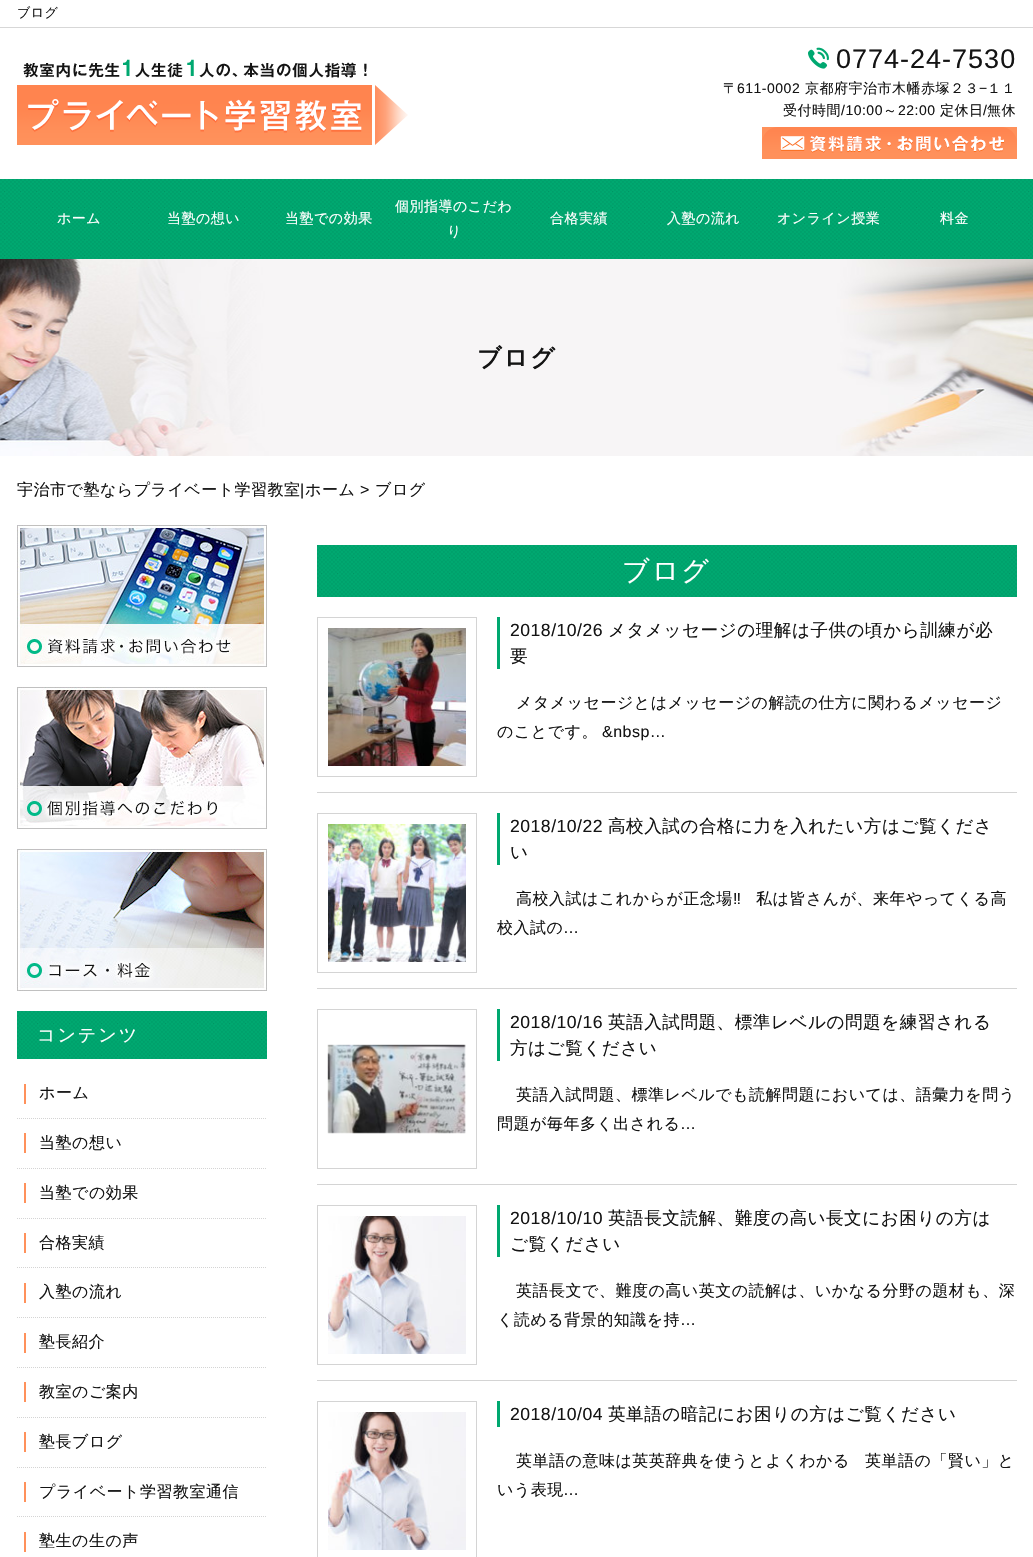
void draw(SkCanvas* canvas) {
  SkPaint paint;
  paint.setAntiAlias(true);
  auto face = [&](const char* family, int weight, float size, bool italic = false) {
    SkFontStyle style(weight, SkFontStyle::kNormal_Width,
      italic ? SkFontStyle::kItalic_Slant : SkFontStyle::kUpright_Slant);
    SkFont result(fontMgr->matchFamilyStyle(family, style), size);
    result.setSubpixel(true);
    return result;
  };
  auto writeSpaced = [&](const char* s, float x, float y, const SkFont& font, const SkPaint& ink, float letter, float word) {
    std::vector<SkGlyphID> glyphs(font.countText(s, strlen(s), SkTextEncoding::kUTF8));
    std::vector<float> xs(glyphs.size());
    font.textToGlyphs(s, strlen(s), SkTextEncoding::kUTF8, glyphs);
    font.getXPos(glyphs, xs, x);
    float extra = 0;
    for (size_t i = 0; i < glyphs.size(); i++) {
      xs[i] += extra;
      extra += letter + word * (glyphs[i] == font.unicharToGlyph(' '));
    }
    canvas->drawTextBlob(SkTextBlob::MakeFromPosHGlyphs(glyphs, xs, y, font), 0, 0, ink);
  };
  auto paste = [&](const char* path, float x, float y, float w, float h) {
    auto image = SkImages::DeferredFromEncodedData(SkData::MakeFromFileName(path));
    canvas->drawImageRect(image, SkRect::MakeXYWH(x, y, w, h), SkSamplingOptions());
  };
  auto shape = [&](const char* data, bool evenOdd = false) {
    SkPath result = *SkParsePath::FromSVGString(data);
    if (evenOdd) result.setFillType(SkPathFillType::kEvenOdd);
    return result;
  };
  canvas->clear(0xffffffff);
  paint.setColor(0xffd7d7d7);
  canvas->drawRect(SkRect::MakeXYWH(0, 27, 1033, 1), paint);
  paste("img/1.png", 17, 59, 391, 86);
  paste("img/2.png", 808, 47, 21, 22);
  paste("img/3.png", 762, 127, 255, 32);
  paste("img/4.png", 0, 179, 1033, 80);
  paste("img/5.png", 0, 259, 1033, 197);
  paste("img/6.png", 17, 525, 250, 142);
  paste("img/7.png", 17, 687, 250, 142);
  paste("img/8.png", 17, 849, 250, 142);
  paste("img/9.png", 17, 1011, 250, 48);
  paint.setStroke(true);
  paint.setStrokeWidth(1);
  paint.setColor(0xffd4d4d4);
  paint.setPathEffect(SkDashPathEffect::Make({{1, 1}}, 0));
  canvas->drawPath(shape("M17 1118.5H267"), paint);
  paint.setPathEffect(nullptr);
  paint.setStroke(false);
  paint.setColor(0xffff915b);
  canvas->drawRect(SkRect::MakeXYWH(24, 1084, 2, 20), paint);
  paint.setStroke(true);
  paint.setColor(0xffd4d4d4);
  paint.setPathEffect(SkDashPathEffect::Make({{1, 1}}, 0));
  canvas->drawPath(shape("M17 1168.5H267"), paint);
  paint.setPathEffect(nullptr);
  paint.setStroke(false);
  paint.setColor(0xffff915b);
  canvas->drawRect(SkRect::MakeXYWH(24, 1133, 2, 20), paint);
  paint.setStroke(true);
  paint.setColor(0xffd4d4d4);
  paint.setPathEffect(SkDashPathEffect::Make({{1, 1}}, 0));
  canvas->drawPath(shape("M17 1218.5H267"), paint);
  paint.setPathEffect(nullptr);
  paint.setStroke(false);
  paint.setColor(0xffff915b);
  canvas->drawRect(SkRect::MakeXYWH(24, 1183, 2, 20), paint);
  paint.setStroke(true);
  paint.setColor(0xffd4d4d4);
  paint.setPathEffect(SkDashPathEffect::Make({{1, 1}}, 0));
  canvas->drawPath(shape("M17 1267.5H267"), paint);
  paint.setPathEffect(nullptr);
  paint.setStroke(false);
  paint.setColor(0xffff915b);
  canvas->drawRect(SkRect::MakeXYWH(24, 1233, 2, 20), paint);
  paint.setStroke(true);
  paint.setColor(0xffd4d4d4);
  paint.setPathEffect(SkDashPathEffect::Make({{1, 1}}, 0));
  canvas->drawPath(shape("M17 1317.5H267"), paint);
  paint.setPathEffect(nullptr);
  paint.setStroke(false);
  paint.setColor(0xffff915b);
  canvas->drawRect(SkRect::MakeXYWH(24, 1283, 2, 20), paint);
  paint.setStroke(true);
  paint.setColor(0xffd4d4d4);
  paint.setPathEffect(SkDashPathEffect::Make({{1, 1}}, 0));
  canvas->drawPath(shape("M17 1367.5H267"), paint);
  paint.setPathEffect(nullptr);
  paint.setStroke(false);
  paint.setColor(0xffff915b);
  canvas->drawRect(SkRect::MakeXYWH(24, 1333, 2, 20), paint);
  paint.setStroke(true);
  paint.setColor(0xffd4d4d4);
  paint.setPathEffect(SkDashPathEffect::Make({{1, 1}}, 0));
  canvas->drawPath(shape("M17 1417.5H267"), paint);
  paint.setPathEffect(nullptr);
  paint.setStroke(false);
  paint.setColor(0xffff915b);
  canvas->drawRect(SkRect::MakeXYWH(24, 1382, 2, 20), paint);
  paint.setStroke(true);
  paint.setColor(0xffd4d4d4);
  paint.setPathEffect(SkDashPathEffect::Make({{1, 1}}, 0));
  canvas->drawPath(shape("M17 1467.5H267"), paint);
  paint.setPathEffect(nullptr);
  paint.setStroke(false);
  paint.setColor(0xffff915b);
  canvas->drawRect(SkRect::MakeXYWH(24, 1432, 2, 20), paint);
  paint.setStroke(true);
  paint.setColor(0xffd4d4d4);
  paint.setPathEffect(SkDashPathEffect::Make({{1, 1}}, 0));
  canvas->drawPath(shape("M17 1516.5H267"), paint);
  paint.setPathEffect(nullptr);
  paint.setStroke(false);
  paint.setColor(0xffff915b);
  canvas->drawRect(SkRect::MakeXYWH(24, 1482, 2, 20), paint);
  canvas->drawRect(SkRect::MakeXYWH(24, 1532, 2, 20), paint);
  paste("img/10.png", 317, 545, 700, 52);
  paint.setColor(0xffd4d4d4);
  canvas->drawRect(SkRect::MakeXYWH(317, 792, 700, 1), paint);
  paint.setStroke(true);
  canvas->drawRect(SkRect::MakeXYWH(317.5f, 617.5f, 159, 159), paint);
  paste("img/11.png", 328, 628, 138, 138);
  paint.setStroke(false);
  paint.setColor(0xff00a870);
  canvas->drawRect(SkRect::MakeXYWH(497, 617, 3, 52), paint);
  paint.setColor(0xffd4d4d4);
  canvas->drawRect(SkRect::MakeXYWH(317, 988, 700, 1), paint);
  paint.setStroke(true);
  canvas->drawRect(SkRect::MakeXYWH(317.5f, 813.5f, 159, 159), paint);
  paste("img/12.png", 328, 824, 138, 138);
  paint.setStroke(false);
  paint.setColor(0xff00a870);
  canvas->drawRect(SkRect::MakeXYWH(497, 813, 3, 52), paint);
  paint.setColor(0xffd4d4d4);
  canvas->drawRect(SkRect::MakeXYWH(317, 1184, 700, 1), paint);
  paint.setStroke(true);
  canvas->drawRect(SkRect::MakeXYWH(317.5f, 1009.5f, 159, 159), paint);
  paste("img/13.png", 327, 1044, 139, 90);
  paint.setStroke(false);
  paint.setColor(0xff00a870);
  canvas->drawRect(SkRect::MakeXYWH(497, 1009, 3, 52), paint);
  paint.setColor(0xffd4d4d4);
  canvas->drawRect(SkRect::MakeXYWH(317, 1380, 700, 1), paint);
  paint.setStroke(true);
  canvas->drawRect(SkRect::MakeXYWH(317.5f, 1205.5f, 159, 159), paint);
  paste("img/14.png", 328, 1216, 138, 138);
  paint.setStroke(false);
  paint.setColor(0xff00a870);
  canvas->drawRect(SkRect::MakeXYWH(497, 1205, 3, 52), paint);
  paint.setStroke(true);
  paint.setColor(0xffd4d4d4);
  canvas->drawRect(SkRect::MakeXYWH(317.5f, 1401.5f, 159, 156), paint);
  paste("img/15.png", 328, 1412, 138, 138);
  paint.setStroke(false);
  paint.setColor(0xff00a870);
  canvas->drawRect(SkRect::MakeXYWH(497, 1401, 3, 26), paint);
  auto f0 = face("WenQuanYi Zen Hei", 500, 13);
  paint.setColor(0xff141414);
  writeSpaced("ブログ", 17, 17, f0, paint, 0.5f, 0);
  auto f1 = face("Liberation Sans", 400, 27);
  writeSpaced("0774-24-7530", 836, 68, f1, paint, 1, 0);
  auto f2 = face("WenQuanYi Zen Hei", 500, 14);
  writeSpaced("〒", 723, 93, f2, paint, 0.5f, 0);
  auto f3 = face("Liberation Sans", 400, 14);
  writeSpaced("611-0002", 737, 93, f3, paint, 0.5f, 0);
  writeSpaced("京都府宇治市木幡赤塚２３", 805, 93, f2, paint, 0.5f, 0);
  writeSpaced("−", 979, 93, f3, paint, 0.5f, 0);
  writeSpaced("１１", 987, 93, f2, paint, 0.5f, 0);
  writeSpaced("受付時間", 783, 115, f2, paint, 0.5f, 0);
  writeSpaced("/10:00", 841, 115, f3, paint, 0.5f, 0);
  writeSpaced("～", 883, 115, f2, paint, 0.5f, 0);
  writeSpaced("22:00", 898, 115, f3, paint, 0.5f, 0);
  writeSpaced("定休日", 940, 115, f2, paint, 0.5f, 0);
  writeSpaced("/", 983, 115, f3, paint, 0.5f, 0);
  writeSpaced("無休", 987, 115, f2, paint, 0.5f, 0);
  paint.setColor(0xffffffff);
  {
    const struct { const char* s; float x, y; } items[] = {
      {"ホーム", 57, 223},
      {"当塾の想い", 167, 223},
      {"当塾での効果", 285, 223},
      {"個別指導のこだわ", 395, 211},
      {"り", 447, 236},
      {"合格実績", 550, 223},
      {"入塾の流れ", 667, 223},
      {"オンライン授業", 777, 223},
      {"料金", 940, 223},
    };
    for (auto [s, x, y] : items) {
      writeSpaced(s, x, y, f2, paint, 0.5f, 0);
    }
  }
  auto f4 = face("WenQuanYi Zen Hei", 700, 24);
  paint.setColor(0xff141414);
  writeSpaced("ブログ", 477, 366, f4, paint, 2, 0);
  auto f5 = face("WenQuanYi Zen Hei", 500, 16);
  writeSpaced("宇治市で塾ならプライベート学習教室", 17, 495, f5, paint, 0.5f, 0);
  auto f6 = face("Liberation Sans", 400, 16);
  writeSpaced("|", 300, 495, f6, paint, 0.5f, 0);
  writeSpaced("ホーム", 305, 495, f5, paint, 0.5f, 0);
  writeSpaced(">", 360, 495, f6, paint, 0.5f, 0);
  writeSpaced("ブログ", 375, 495, f5, paint, 0.5f, 0);
  auto f7 = face("WenQuanYi Zen Hei", 500, 18);
  paint.setColor(0xffffffff);
  writeSpaced("コンテンツ", 37, 1041, f7, paint, 2, 0);
  paint.setColor(0xff141414);
  {
    const struct { const char* s; float x, y; } items[] = {
      {"ホーム", 39, 1098},
      {"当塾の想い", 39, 1148},
      {"当塾での効果", 39, 1198},
      {"合格実績", 39, 1248},
      {"入塾の流れ", 39, 1297},
      {"塾長紹介", 39, 1347},
      {"教室のご案内", 39, 1397},
      {"塾長ブログ", 39, 1447},
      {"プライベート学習教室通信", 39, 1497},
      {"塾生の生の声", 39, 1546},
    };
    for (auto [s, x, y] : items) {
      writeSpaced(s, x, y, f5, paint, 0.5f, 0);
    }
  }
  auto f8 = face("WenQuanYi Zen Hei", 500, 27);
  paint.setColor(0xffffffff);
  writeSpaced("ブログ", 622, 580, f8, paint, 2, 0);
  auto f9 = face("Liberation Sans", 400, 17.6f);
  paint.setColor(0xff141414);
  writeSpaced("2018/10/26", 510, 636, f9, paint, 0.5f, 0);
  auto f10 = face("WenQuanYi Zen Hei", 500, 17.6f);
  writeSpaced("メタメッセージの理解は子供の頃から訓練が必", 608, 636, f10, paint, 0.5f, 0);
  writeSpaced("要", 510, 662, f10, paint, 0.5f, 0);
  writeSpaced("メタメッセージとはメッセージの解読の仕方に関わるメッセージ", 516, 708, f5, paint, 0.5f, 0);
  writeSpaced("のことです。", 497, 737, f5, paint, 0.5f, 0);
  writeSpaced("&nbsp…", 602, 737, f6, paint, 0.5f, 0);
  writeSpaced("2018/10/22", 510, 832, f9, paint, 0.5f, 0);
  writeSpaced("高校入試の合格に力を入れたい方はご覧くださ", 608, 832, f10, paint, 0.5f, 0);
  writeSpaced("い", 510, 858, f10, paint, 0.5f, 0);
  writeSpaced("高校入試はこれからが正念場", 516, 904, f5, paint, 0.5f, 0);
  writeSpaced("‼", 733, 904, f6, paint, 0.5f, 0);
  writeSpaced("私は皆さんが、来年やってくる高", 756, 904, f5, paint, 0.5f, 0);
  writeSpaced("校入試の", 497, 933, f5, paint, 0.5f, 0);
  writeSpaced("…", 563, 933, f6, paint, 0.5f, 0);
  writeSpaced("2018/10/16", 510, 1028, f9, paint, 0.5f, 0);
  writeSpaced("英語入試問題、標準レベルの問題を練習される", 608, 1028, f10, paint, 0.5f, 0);
  writeSpaced("方はご覧ください", 510, 1054, f10, paint, 0.5f, 0);
  writeSpaced("英語入試問題、標準レベルでも読解問題においては、語彙力を問う", 516, 1100, f5, paint, 0.5f, 0);
  writeSpaced("問題が毎年多く出される", 497, 1129, f5, paint, 0.5f, 0);
  writeSpaced("…", 680, 1129, f6, paint, 0.5f, 0);
  writeSpaced("2018/10/10", 510, 1224, f9, paint, 0.5f, 0);
  writeSpaced("英語長文読解、難度の高い長文にお困りの方は", 608, 1224, f10, paint, 0.5f, 0);
  writeSpaced("ご覧ください", 510, 1250, f10, paint, 0.5f, 0);
  writeSpaced("英語長文で、難度の高い英文の読解は、いかなる分野の題材も、深", 516, 1296, f5, paint, 0.5f, 0);
  writeSpaced("く読める背景的知識を持", 497, 1325, f5, paint, 0.5f, 0);
  writeSpaced("…", 680, 1325, f6, paint, 0.5f, 0);
  writeSpaced("2018/10/04", 510, 1420, f9, paint, 0.5f, 0);
  writeSpaced("英単語の暗記にお困りの方はご覧ください", 608, 1420, f10, paint, 0.5f, 0);
  {
    const struct { const char* s; float x, y; } items[] = {
      {"英単語の意味は英英辞典を使うとよくわかる", 516, 1466},
      {"英単語の「賢い」と", 865, 1466},
      {"いう表現", 497, 1495},
    };
    for (auto [s, x, y] : items) {
      writeSpaced(s, x, y, f5, paint, 0.5f, 0);
    }
  }
  writeSpaced("…", 563, 1495, f6, paint, 0.5f, 0);
}
